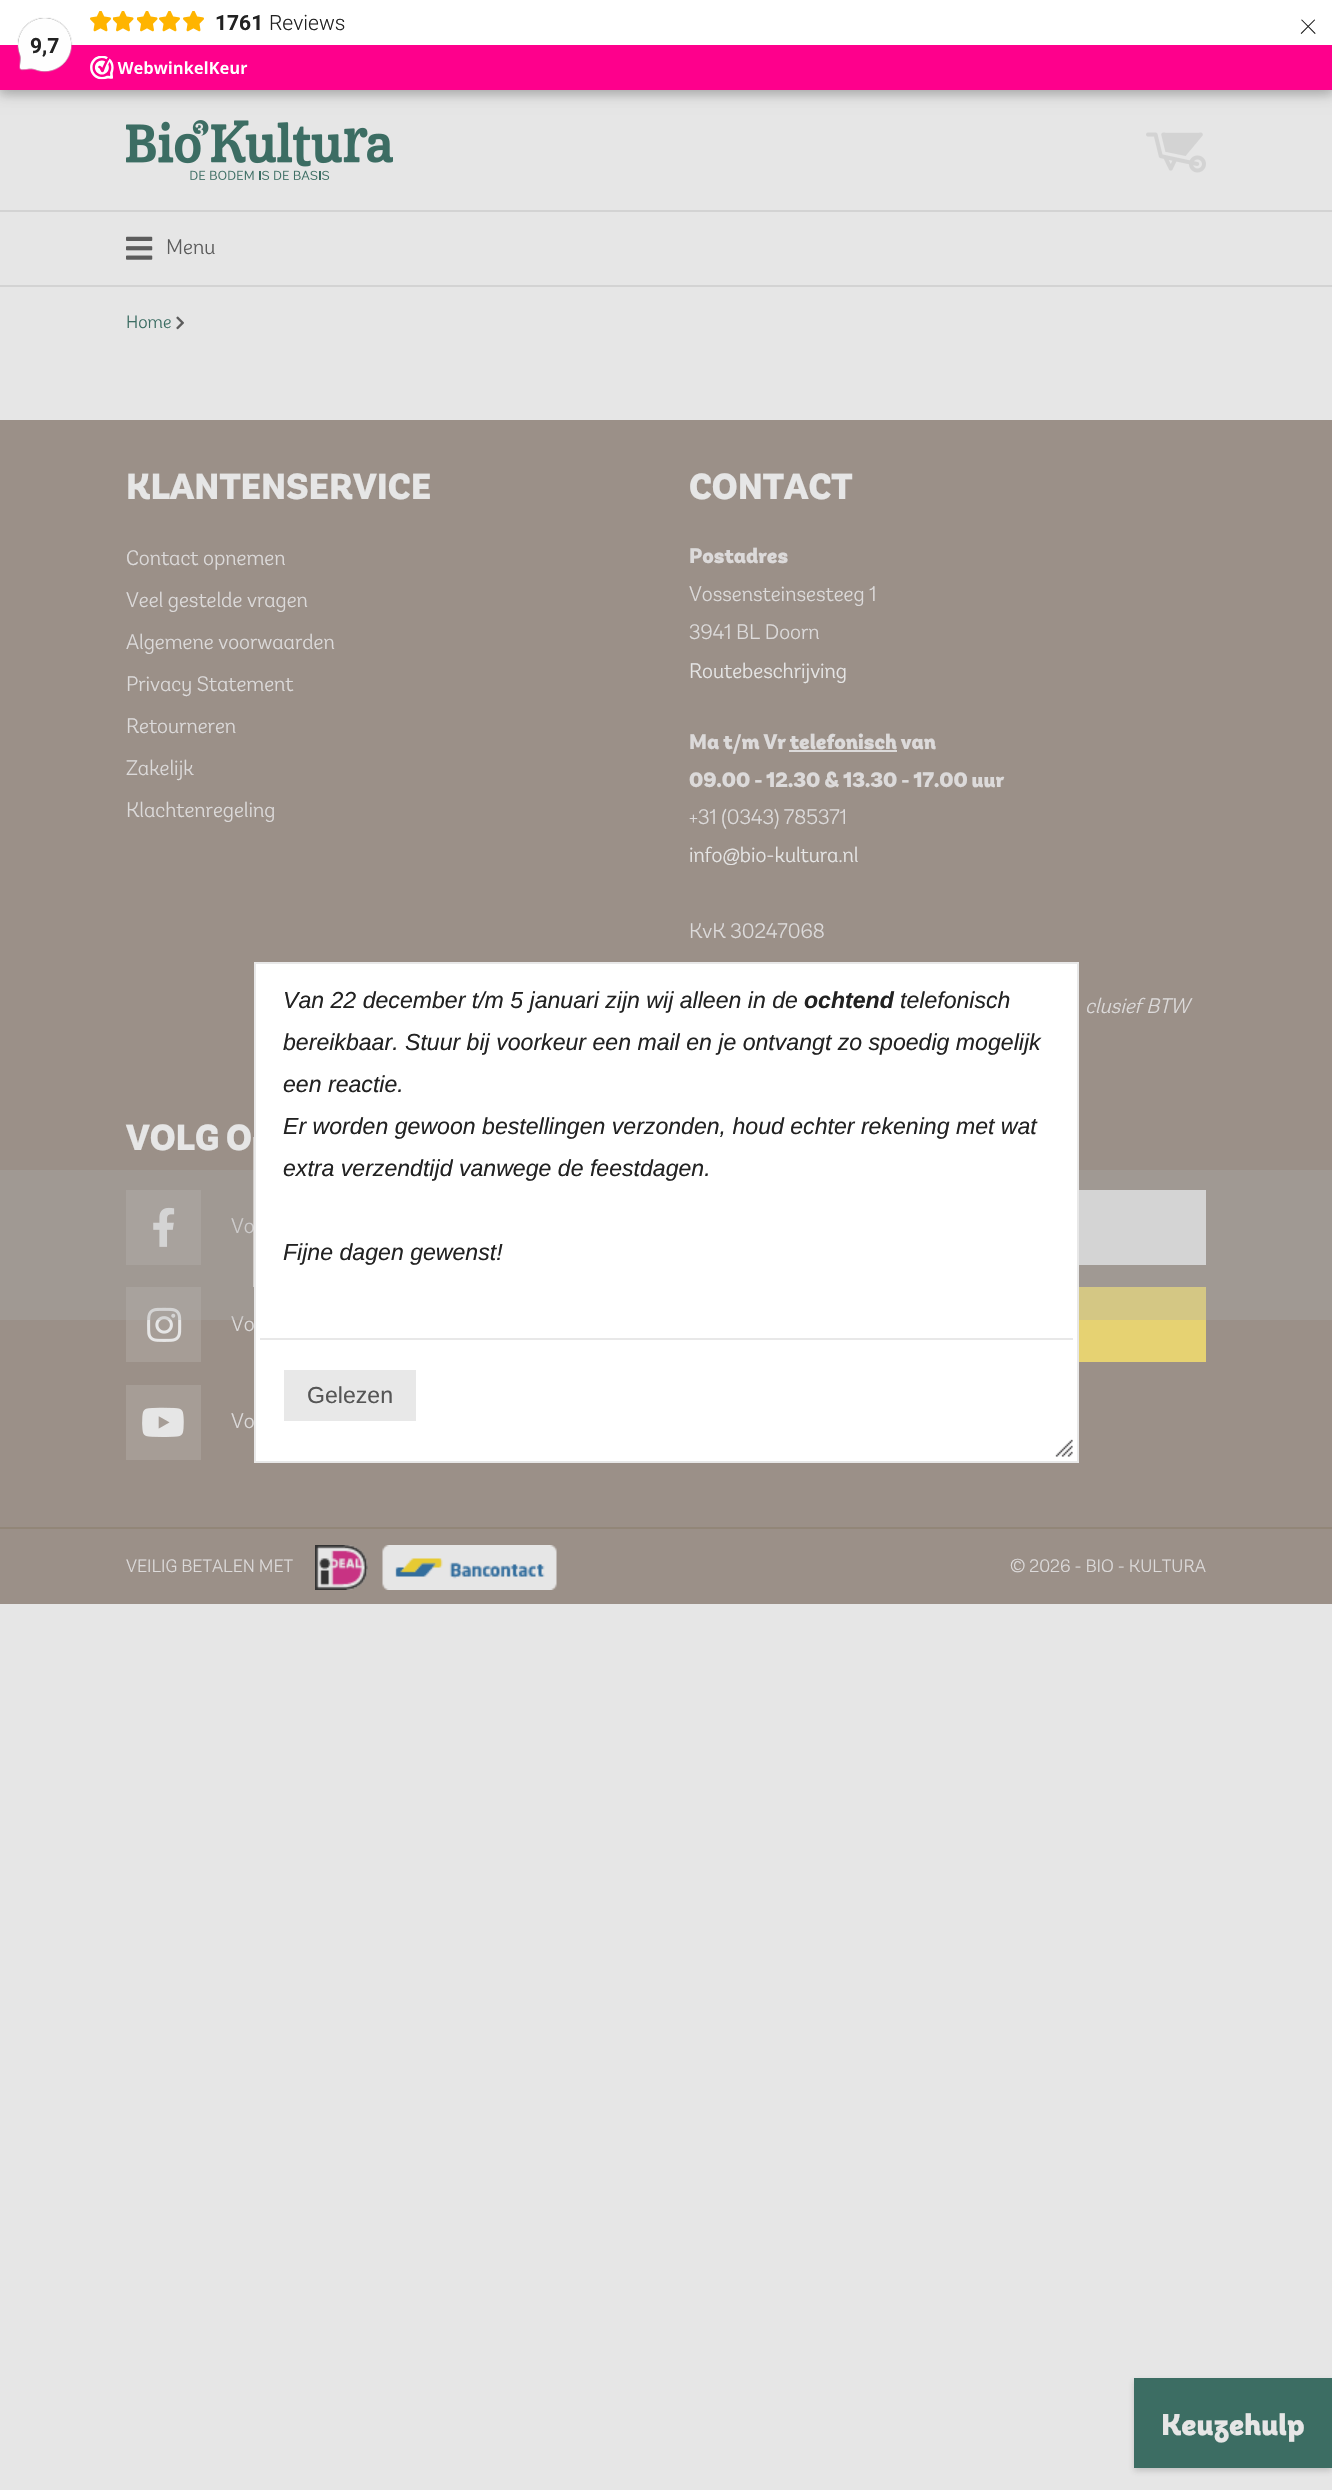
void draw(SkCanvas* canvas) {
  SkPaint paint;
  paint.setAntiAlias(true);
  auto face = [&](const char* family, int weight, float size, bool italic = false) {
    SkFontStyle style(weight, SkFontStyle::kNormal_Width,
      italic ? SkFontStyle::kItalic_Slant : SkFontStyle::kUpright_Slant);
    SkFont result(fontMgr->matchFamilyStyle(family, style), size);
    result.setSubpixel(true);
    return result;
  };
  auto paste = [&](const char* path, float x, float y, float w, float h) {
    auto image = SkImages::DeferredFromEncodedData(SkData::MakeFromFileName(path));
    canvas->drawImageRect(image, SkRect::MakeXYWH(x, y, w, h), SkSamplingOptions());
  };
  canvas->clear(0xffe6e6e6);
  paint.setColor(0x26000000);
  paint.setMaskFilter(SkMaskFilter::MakeBlur(kNormal_SkBlurStyle, 4.5f));
  canvas->drawRect(SkRect::MakeXYWH(-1, -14, 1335, 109), paint);
  paint.setMaskFilter(nullptr);
  paint.setMaskFilter(SkMaskFilter::MakeBlur(kNormal_SkBlurStyle, 7.5f));
  canvas->drawRect(SkRect::MakeXYWH(0, 3, 1332, 90), paint);
  paint.setMaskFilter(nullptr);
  paint.setColor(0xffffffff);
  canvas->drawRect(SkRect::MakeXYWH(0, 0, 1332, 45), paint);
  paste("img/1.png", 90, 11, 21, 21);
  paste("img/2.png", 113, 11, 21, 21);
  paste("img/2.png", 137, 11, 21, 21);
  paste("img/1.png", 159, 11, 21, 21);
  paste("img/1.png", 183, 11, 21, 21);
  paint.setColor(0xfffe008c);
  canvas->drawRect(SkRect::MakeXYWH(0, 45, 1332, 45), paint);
  paste("img/3.png", 17, 17, 56, 56);
  paste("img/4.png", 90, 56, 158, 24);
  paint.setColor(0xffd3d3d3);
  canvas->drawRect(SkRect::MakeXYWH(0, 210, 1332, 2), paint);
  paste("img/5.png", 126, 120, 267, 60);
  paste("img/6.png", 1146, 132, 60, 41);
  canvas->drawRect(SkRect::MakeXYWH(0, 285, 1332, 2), paint);
  paste("img/7.png", 126, 236, 27, 24);
  paste("img/8.png", 176, 316, 8, 14);
  {
    const struct { float x, y, w, h; SkColor color; } items[] = {
      {0, 420, 1332, 1184, 0xff9b9088},
      {789, 750, 108, 2, 0xffdcdada},
      {126, 1190, 75, 75, 0xffa69d96},
    };
    for (auto [x, y, w, h, color] : items) {
      paint.setColor(color);
      canvas->drawRect(SkRect::MakeXYWH(x, y, w, h), paint);
    }
  }
  paste("img/9.png", 153, 1207, 22, 40);
  canvas->drawRect(SkRect::MakeXYWH(126, 1287, 75, 75), paint);
  paste("img/10.png", 147, 1307, 35, 35);
  canvas->drawRect(SkRect::MakeXYWH(126, 1385, 75, 75), paint);
  paste("img/11.png", 142, 1407, 42, 30);
  {
    const struct { float x, y, w, h; SkColor color; } items[] = {
      {1079, 1190, 127, 75, 0xffe6e6e6},
      {1079, 1287, 127, 75, 0xffe6d272},
      {0, 1527, 1332, 2, 0xff928678},
    };
    for (auto [x, y, w, h, color] : items) {
      paint.setColor(color);
      canvas->drawRect(SkRect::MakeXYWH(x, y, w, h), paint);
    }
  }
  paste("img/12.png", 315, 1545, 242, 45);
  paint.setColor(0x33333333);
  paint.setMaskFilter(SkMaskFilter::MakeBlur(kNormal_SkBlurStyle, 3));
  canvas->drawRect(SkRect::MakeXYWH(1134, 2381, 198, 90), paint);
  paint.setMaskFilter(nullptr);
  paint.setColor(0xff3c6d63);
  canvas->drawRect(SkRect::MakeXYWH(1134, 2378, 198, 90), paint);
  auto f0 = face("Roboto", 700, 21);
  paint.setColor(0xff222222);
  canvas->drawString("1761", 215, 30, f0, paint);
  auto f1 = face("Roboto", 300, 21);
  canvas->drawString("Reviews", 269, 30, f1, paint);
  auto f2 = face("Roboto", 100, 36);
  canvas->drawString("×", 1299, 34, f2, paint);
  canvas->drawString("9,7", 30, 53, f0, paint);
  auto f3 = face("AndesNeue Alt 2", 300, 21);
  paint.setColor(0xff5c5c5c);
  canvas->drawString("Menu", 166, 254, f3, paint);
  auto f4 = face("AndesNeue Alt 2", 300, 18);
  paint.setColor(0xff3c6d63);
  canvas->drawString("Home", 126, 328, f4, paint);
  auto f5 = face("AndesNeue Alt 2", 900, 36);
  paint.setColor(0xffe6e6e6);
  canvas->drawString("KLANTENSERVICE", 126, 499, f5, paint);
  paint.setColor(0xffdcdada);
  {
    const struct { const char* s; float x, y; } items[] = {
      {"Contact opnemen", 126, 565},
      {"Veel gestelde vragen", 126, 607},
      {"Algemene voorwaarden", 126, 649},
      {"Privacy Statement", 126, 691},
      {"Retourneren", 126, 733},
      {"Zakelijk", 126, 775},
      {"Klachtenregeling", 126, 817},
    };
    for (auto [s, x, y] : items) {
      canvas->drawString(s, x, y, f3, paint);
    }
  }
  paint.setColor(0xffe6e6e6);
  canvas->drawString("CONTACT", 689, 499, f5, paint);
  auto f6 = face("AndesNeue Alt 2", 900, 21);
  paint.setColor(0xffdcdada);
  canvas->drawString("Postadres", 689, 563, f6, paint);
  canvas->drawString("Vossensteinsesteeg 1", 689, 601, f3, paint);
  canvas->drawString("3941 BL Doorn", 689, 639, f3, paint);
  paint.setColor(0xffe6e6e6);
  canvas->drawString("Routebeschrijving", 689, 678, f3, paint);
  paint.setColor(0xffdcdada);
  canvas->drawString("Ma t/m Vr telefonisch van", 689, 749, f6, paint);
  canvas->drawString("09.00 - 12.30 & 13.30 - 17.00 uur", 689, 787, f6, paint);
  canvas->drawString("+31 (0343) 785371", 689, 824, f3, paint);
  paint.setColor(0xffe6e6e6);
  canvas->drawString("info@bio-kultura.nl", 689, 862, f3, paint);
  paint.setColor(0xffdcdada);
  canvas->drawString("KvK 30247068", 689, 938, f3, paint);
  auto f7 = face("AndesNeue Alt 2", 300, 21, true);
  canvas->drawString("clusief BTW", 1085, 1013, f7, paint);
  paint.setColor(0xffe6e6e6);
  canvas->drawString("VOLG O", 126, 1150, f5, paint);
  paint.setColor(0xffdcdada);
  {
    const struct { const char* s; float x, y; } items[] = {
      {"Vo", 231, 1233},
      {"Vo", 231, 1331},
      {"Vo", 231, 1428},
    };
    for (auto [s, x, y] : items) {
      canvas->drawString(s, x, y, f3, paint);
    }
  }
  canvas->drawString("VEILIG BETALEN MET", 126, 1572, f4, paint);
  canvas->drawString("© 2026 - BIO - KULTURA", 1010, 1572, f4, paint);
  paint.setColor(0x4dababab);
  canvas->drawRect(SkRect::MakeXYWH(0, 1170, 1332, 150), paint);
  paint.setColor(0xffffffff);
  canvas->drawRect(SkRect::MakeXYWH(255, 963, 823, 499), paint);
  paint.setStroke(true);
  paint.setStrokeWidth(2);
  paint.setColor(0xffe8e8e8);
  canvas->drawRect(SkRect::MakeXYWH(255, 963, 823, 499), paint);
  paste("img/13.png", 1055, 1439, 18, 18);
  paint.setStroke(false);
  canvas->drawRect(SkRect::MakeXYWH(284, 1370, 132, 51), paint);
  auto f8 = face("Liberation Sans", 400, 23.1f);
  paint.setColor(0xff555555);
  canvas->drawString("Gelezen", 307, 1403, f8, paint);
  auto f9 = face("Liberation Sans", 400, 23.1f, true);
  paint.setColor(0xff222222);
  {
    const struct { const char* s; float x, y; } items[] = {
      {"Fijne dagen gewenst!", 283, 1260},
      {"extra verzendtijd vanwege de feestdagen.", 283, 1176},
      {"Er worden gewoon bestellingen verzonden, houd echter rekening met wat", 283, 1134},
      {"een reactie.", 283, 1092},
      {"bereikbaar. Stuur bij voorkeur een mail en je ontvangt zo spoedig mogelijk", 283, 1050},
      {"telefonisch", 900, 1008},
    };
    for (auto [s, x, y] : items) {
      canvas->drawString(s, x, y, f9, paint);
    }
  }
  auto f10 = face("Liberation Sans", 700, 23.1f, true);
  canvas->drawString("ochtend", 804, 1008, f10, paint);
  canvas->drawString("Van 22 december t/m 5 januari zijn wij alleen in de", 283, 1008, f9, paint);
  paint.setColor(0xffe8e8e8);
  canvas->drawRect(SkRect::MakeXYWH(260, 1338, 813, 2), paint);
  paint.setColor(0x80ffffff);
  canvas->drawRect(SkRect::MakeXYWH(253, 1137, 1, 150), paint);
  auto f11 = face("AndesNeue Alt 2", 900, 30);
  paint.setColor(0xffe6e6e6);
  canvas->drawString("Keuzehulp", 1161, 2435, f11, paint);
}
